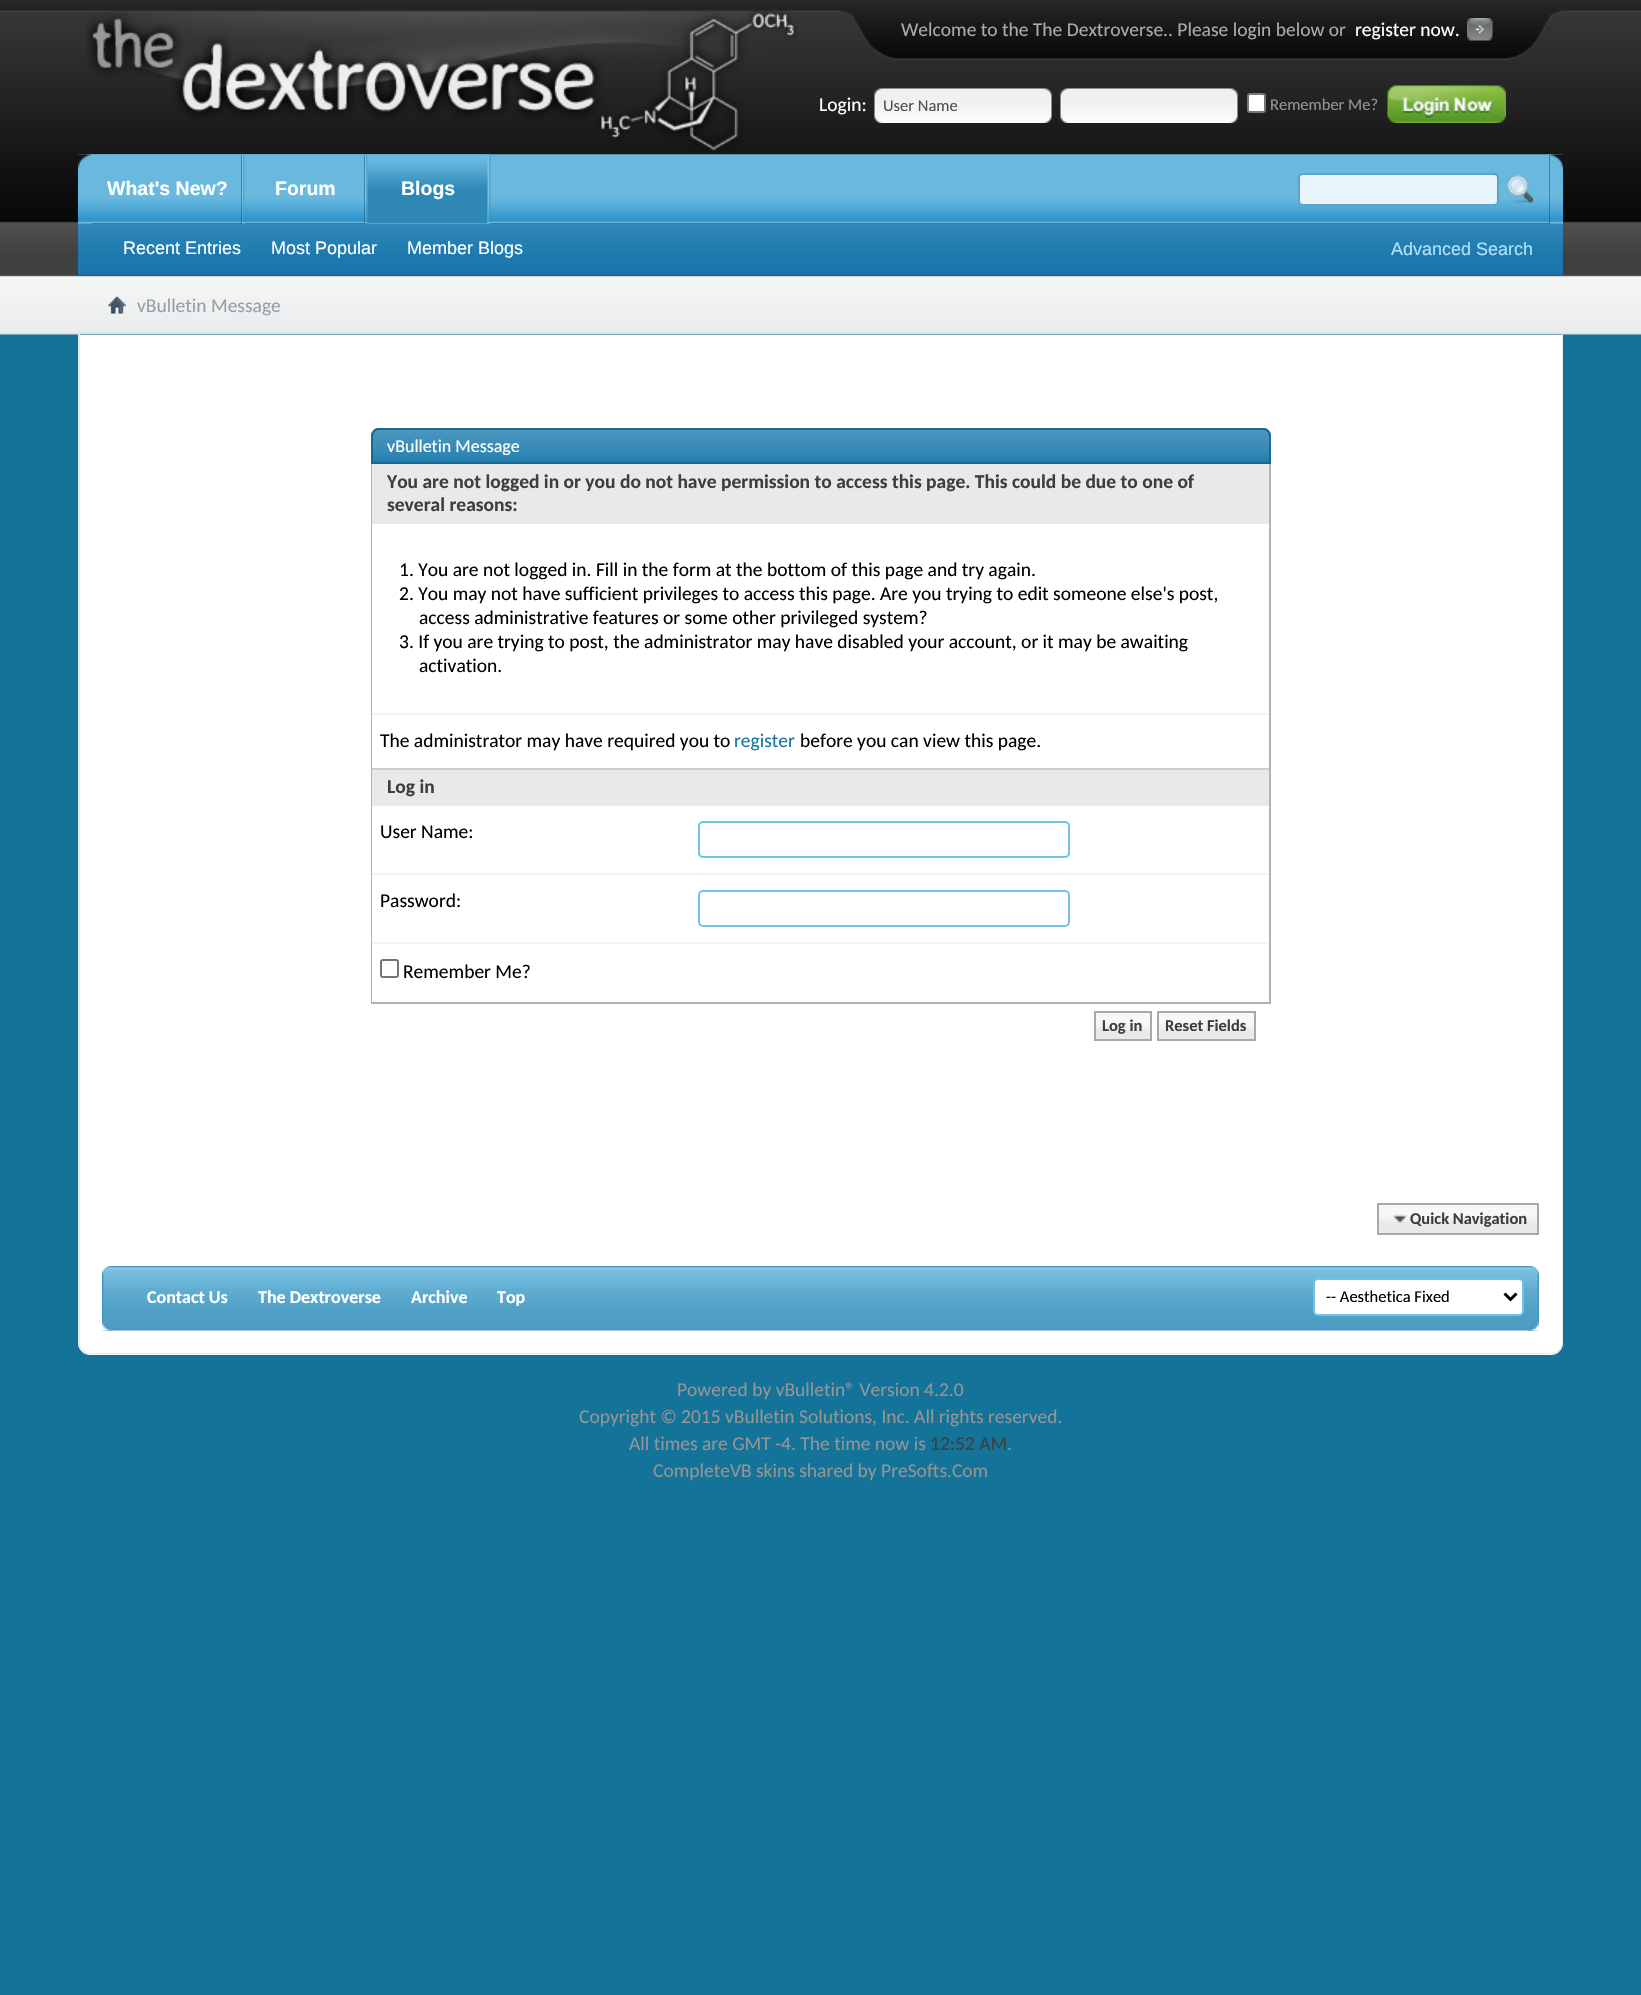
void draw(SkCanvas* canvas) {
  SkPaint paint;
  paint.setAntiAlias(true);
  auto face = [&](const char* family, int weight, float size, bool italic = false) {
    SkFontStyle style(weight, SkFontStyle::kNormal_Width,
      italic ? SkFontStyle::kItalic_Slant : SkFontStyle::kUpright_Slant);
    SkFont result(fontMgr->matchFamilyStyle(family, style), size);
    result.setSubpixel(true);
    return result;
  };
  auto paste = [&](const char* path, float x, float y, float w, float h) {
    auto image = SkImages::DeferredFromEncodedData(SkData::MakeFromFileName(path));
    canvas->drawImageRect(image, SkRect::MakeXYWH(x, y, w, h), SkSamplingOptions());
  };
  auto shape = [&](const char* data, bool evenOdd = false) {
    SkPath result = *SkParsePath::FromSVGString(data);
    if (evenOdd) result.setFillType(SkPathFillType::kEvenOdd);
    return result;
  };
  canvas->clear(0xff137399);
  paste("img/1.png", 0, 0, 1641, 335);
  paste("img/2.png", 86, 10, 711, 141);
  paste("img/3.png", 840, 10, 57, 50);
  paste("img/4.png", 1506, 10, 57, 50);
  paste("img/5.png", 897, 10, 609, 50);
  paste("img/6.png", 1467, 18, 26, 23);
  paste("img/7.png", 874, 88, 178, 35);
  paste("img/8.png", 1060, 88, 178, 35);
  paint.setColor(0xffffffff);
  canvas->drawRoundRect(SkRect::MakeXYWH(1248, 94, 17, 18), 2, 2, paint);
  paint.setStroke(true);
  paint.setStrokeWidth(2);
  paint.setColor(0xff767676);
  canvas->drawRoundRect(SkRect::MakeXYWH(1248, 94, 17, 18), 2, 2, paint);
  paste("img/9.png", 1387, 85, 119, 38);
  paste("img/10.png", 78, 154, 1485, 122);
  paste("img/11.png", 78, 154, 15, 16);
  paste("img/12.png", 1548, 154, 15, 16);
  paint.setStroke(false);
  paint.setColor(0xff0a537c);
  canvas->drawRect(SkRect::MakeXYWH(242, 155, 1308, 69), paint);
  paste("img/13.png", 91, 154, 1459, 70);
  paste("img/14.png", 241, 154, 4, 70);
  canvas->drawRect(SkRect::MakeXYWH(92, 155, 150, 69), paint);
  paste("img/15.png", 91, 154, 151, 70);
  paste("img/14.png", 487, 154, 4, 70);
  paint.setColor(0xff72c2e8);
  canvas->drawRect(SkRect::MakeXYWH(368, 155, 120, 69), paint);
  paste("img/14.png", 364, 154, 4, 70);
  paste("img/16.png", 367, 154, 121, 70);
  paint.setColor(0xff0a537c);
  canvas->drawRect(SkRect::MakeXYWH(245, 155, 120, 69), paint);
  paste("img/17.png", 244, 154, 121, 70);
  paint.setColor(0xffe7f4fa);
  canvas->drawRoundRect(SkRect::MakeXYWH(1299, 174, 199, 31), 4, 4, paint);
  paint.setStroke(true);
  paint.setColor(0xff5ca3c4);
  canvas->drawRoundRect(SkRect::MakeXYWH(1299, 174, 199, 31), 4, 4, paint);
  paste("img/18.png", 1507, 175, 26, 28);
  paste("img/19.png", 108, 296, 18, 18);
  paint.setStroke(false);
  paint.setColor(0xffffffff);
  canvas->drawPath(shape("M78 335H1563V1343C1563 1349.5 1557.5 1355 1551 1355H90C83.5 1355 78 1349.5 78 1343Z"), paint);
  paint.setColor(0xffe9e9e9);
  canvas->drawPath(shape("M78 334H1563V1342C1563 1349 1558 1354 1551 1354H90C83 1354 78 1349 78 1342ZM80 334H1562V1342C1562 1348 1557 1353 1551 1353H90C84 1353 80 1348 80 1342Z", true), paint);
  paint.setColor(0xff237fb0);
  canvas->drawPath(shape("M379 428H1263C1267.5 428 1271 431.5 1271 436V464H371V436C371 431.5 374.5 428 379 428Z"), paint);
  paste("img/20.png", 371, 429, 900, 30);
  paint.setStroke(true);
  paint.setColor(0xff186893);
  canvas->drawPath(shape("M379 429H1263C1267 429 1270 432 1270 436V463H372V436C372 432 375 429 379 429Z"), paint);
  paint.setStroke(false);
  {
    const struct { float x, y, w, h; SkColor color; } items[] = {
      {1269, 464, 2, 540, 0xffb3b3a7},
      {371, 1002, 900, 2, 0xffb3b3a7},
      {371, 464, 2, 540, 0xffb3b3a7},
      {372, 464, 897, 60, 0xffe9e9e9},
      {372, 524, 1, 189, 0xffffffff},
      {372, 715, 1, 53, 0xffffffff},
      {372, 713, 897, 2, 0xfff1f3f8},
      {372, 770, 897, 36, 0xffe9e9e9},
      {372, 768, 897, 2, 0xffcecece},
      {372, 806, 1, 67, 0xffffffff},
    };
    for (auto [x, y, w, h, color] : items) {
      paint.setColor(color);
      canvas->drawRect(SkRect::MakeXYWH(x, y, w, h), paint);
    }
  }
  paint.setStroke(true);
  paint.setColor(0xff72c2e8);
  canvas->drawRoundRect(SkRect::MakeXYWH(699, 822, 370, 35), 4, 4, paint);
  paint.setStroke(false);
  paint.setColor(0xffffffff);
  canvas->drawRect(SkRect::MakeXYWH(372, 875, 1, 67), paint);
  paint.setColor(0xfff1f3f8);
  canvas->drawRect(SkRect::MakeXYWH(372, 873, 897, 2), paint);
  paint.setStroke(true);
  paint.setColor(0xff72c2e8);
  canvas->drawRoundRect(SkRect::MakeXYWH(699, 891, 370, 35), 4, 4, paint);
  paint.setStroke(false);
  paint.setColor(0xffffffff);
  canvas->drawRect(SkRect::MakeXYWH(372, 944, 1, 58), paint);
  paint.setColor(0xfff1f3f8);
  canvas->drawRect(SkRect::MakeXYWH(372, 942, 897, 2), paint);
  paint.setStroke(true);
  paint.setColor(0xff767676);
  canvas->drawRoundRect(SkRect::MakeXYWH(381, 960, 17, 17), 2, 2, paint);
  paint.setStroke(false);
  paint.setColor(0xffe9e9e9);
  canvas->drawRect(SkRect::MakeXYWH(1096, 1013, 54, 26), paint);
  paste("img/21.png", 1096, 1013, 54, 17);
  paint.setStroke(true);
  paint.setColor(0xffa8a8a8);
  canvas->drawRect(SkRect::MakeXYWH(1095, 1012, 56, 28), paint);
  paint.setStroke(false);
  paint.setColor(0xffe9e9e9);
  canvas->drawRect(SkRect::MakeXYWH(1159, 1013, 95, 26), paint);
  paste("img/22.png", 1159, 1013, 95, 17);
  paint.setStroke(true);
  paint.setColor(0xffa8a8a8);
  canvas->drawRect(SkRect::MakeXYWH(1158, 1012, 97, 28), paint);
  paint.setStroke(false);
  paint.setColor(0xffe9e9e9);
  canvas->drawRect(SkRect::MakeXYWH(1379, 1205, 158, 28), paint);
  paste("img/23.png", 1379, 1205, 158, 17);
  paint.setStroke(true);
  paint.setColor(0xffa8a8a8);
  canvas->drawRect(SkRect::MakeXYWH(1378, 1204, 160, 30), paint);
  paste("img/24.png", 1393, 1214, 14, 10);
  paste("img/25.png", 102, 1266, 1437, 65);
  paste("img/26.png", 102, 1266, 11, 65);
  paste("img/27.png", 1528, 1266, 11, 65);
  paint.setStroke(false);
  paint.setColor(0xffffffff);
  canvas->drawRoundRect(SkRect::MakeXYWH(1314, 1279, 209, 36), 4, 4, paint);
  paint.setStroke(true);
  paint.setColor(0xff72c2e8);
  canvas->drawRoundRect(SkRect::MakeXYWH(1314, 1279, 209, 36), 4, 4, paint);
  paint.setStrokeWidth(3);
  paint.setColor(0xff000000);
  canvas->drawPath(shape("M1504.5 1293.5L1510.5 1299.5L1516.5 1293.5"), paint);
  auto f0 = face("Carlito", 400, 19.5f);
  paint.setStroke(false);
  paint.setColor(0xffababab);
  canvas->drawString("Welcome to the The Dextroverse.. Please login below or", 901, 36, f0, paint);
  paint.setColor(0xffffffff);
  canvas->drawString("register now.", 1355, 36, f0, paint);
  canvas->drawString("Login:", 819, 111, f0, paint);
  auto f1 = face("Carlito", 400, 16.5f);
  paint.setColor(0xff4d5153);
  canvas->drawString("User Name", 883, 111, f1, paint);
  paint.setColor(0xff959595);
  canvas->drawString("Remember Me?", 1270, 110, f1, paint);
  auto f2 = face("Liberation Sans", 700, 19.5f);
  paint.setColor(0xffffffff);
  canvas->drawString("What's New?", 107, 195, f2, paint);
  canvas->drawString("Blogs", 401, 195, f2, paint);
  auto f3 = face("Liberation Sans", 400, 18);
  {
    const struct { const char* s; float x, y; } items[] = {
      {"Recent Entries", 123, 254},
      {"Most Popular", 271, 254},
      {"Member Blogs", 407, 254},
    };
    for (auto [s, x, y] : items) {
      canvas->drawString(s, x, y, f3, paint);
    }
  }
  canvas->drawString("Forum", 275, 195, f2, paint);
  paint.setColor(0xffaee1f8);
  canvas->drawString("Advanced Search", 1391, 255, f3, paint);
  paint.setColor(0xff94a1a7);
  canvas->drawString("vBulletin Message", 137, 312, f0, paint);
  auto f4 = face("Carlito", 400, 18);
  paint.setColor(0xffffffff);
  canvas->drawString("vBulletin Message", 387, 452, f4, paint);
  auto f5 = face("Carlito", 700, 19.5f);
  paint.setColor(0xff3e3e3e);
  canvas->drawString("You are not logged in or you do not have permission to access this page. This could be due to one of", 387, 488, f5, paint);
  canvas->drawString("several reasons:", 387, 511, f5, paint);
  paint.setColor(0xff000000);
  {
    const struct { const char* s; float x, y; } items[] = {
      {"1. You are not logged in. Fill in the form at the bottom of this page and try again.", 399, 576},
      {"2. You may not have sufficient privileges to access this page. Are you trying to edit someone else's post,", 399, 600},
      {"access administrative features or some other privileged system?", 419, 624},
      {"3. If you are trying to post, the administrator may have disabled your account, or it may be awaiting", 399, 648},
      {"activation.", 419, 672},
      {"The administrator may have required you to", 380, 747},
    };
    for (auto [s, x, y] : items) {
      canvas->drawString(s, x, y, f0, paint);
    }
  }
  paint.setColor(0xff1874a0);
  canvas->drawString("register", 734, 747, f0, paint);
  paint.setColor(0xff000000);
  canvas->drawString("before you can view this page.", 800, 747, f0, paint);
  paint.setColor(0xff3e3e3e);
  canvas->drawString("Log in", 387, 793, f5, paint);
  paint.setColor(0xff000000);
  {
    const struct { const char* s; float x, y; } items[] = {
      {"User Name:", 380, 838},
      {"Password:", 380, 907},
      {"Remember Me?", 403, 978},
    };
    for (auto [s, x, y] : items) {
      canvas->drawString(s, x, y, f0, paint);
    }
  }
  auto f6 = face("Carlito", 700, 16.5f);
  paint.setColor(0xff3e3e3e);
  {
    const struct { const char* s; float x, y; } items[] = {
      {"Log in", 1102, 1031},
      {"Reset Fields", 1165, 1031},
      {"Quick Navigation", 1410, 1224},
    };
    for (auto [s, x, y] : items) {
      canvas->drawString(s, x, y, f6, paint);
    }
  }
  auto f7 = face("Carlito", 700, 18);
  paint.setColor(0xffffffff);
  {
    const struct { const char* s; float x, y; } items[] = {
      {"Contact Us", 147, 1303},
      {"The Dextroverse", 258, 1303},
      {"Archive", 411, 1303},
      {"Top", 497, 1303},
    };
    for (auto [s, x, y] : items) {
      canvas->drawString(s, x, y, f7, paint);
    }
  }
  paint.setColor(0xff000000);
  canvas->drawString("-- Aesthetica Fixed", 1326, 1302, f1, paint);
  paint.setColor(0xff959595);
  {
    const struct { const char* s; float x, y; } items[] = {
      {"Powered by vBulletin® Version 4.2.0", 677, 1396},
      {"Copyright © 2015 vBulletin Solutions, Inc. All rights reserved.", 579, 1423},
      {"All times are GMT -4. The time now is", 629, 1450},
    };
    for (auto [s, x, y] : items) {
      canvas->drawString(s, x, y, f0, paint);
    }
  }
  paint.setColor(0xff3e3e3e);
  canvas->drawString("12:52 AM", 930, 1450, f0, paint);
  paint.setColor(0xff959595);
  canvas->drawString(".", 1007, 1450, f0, paint);
  canvas->drawString("CompleteVB skins shared by PreSofts.Com", 653, 1477, f0, paint);
}
